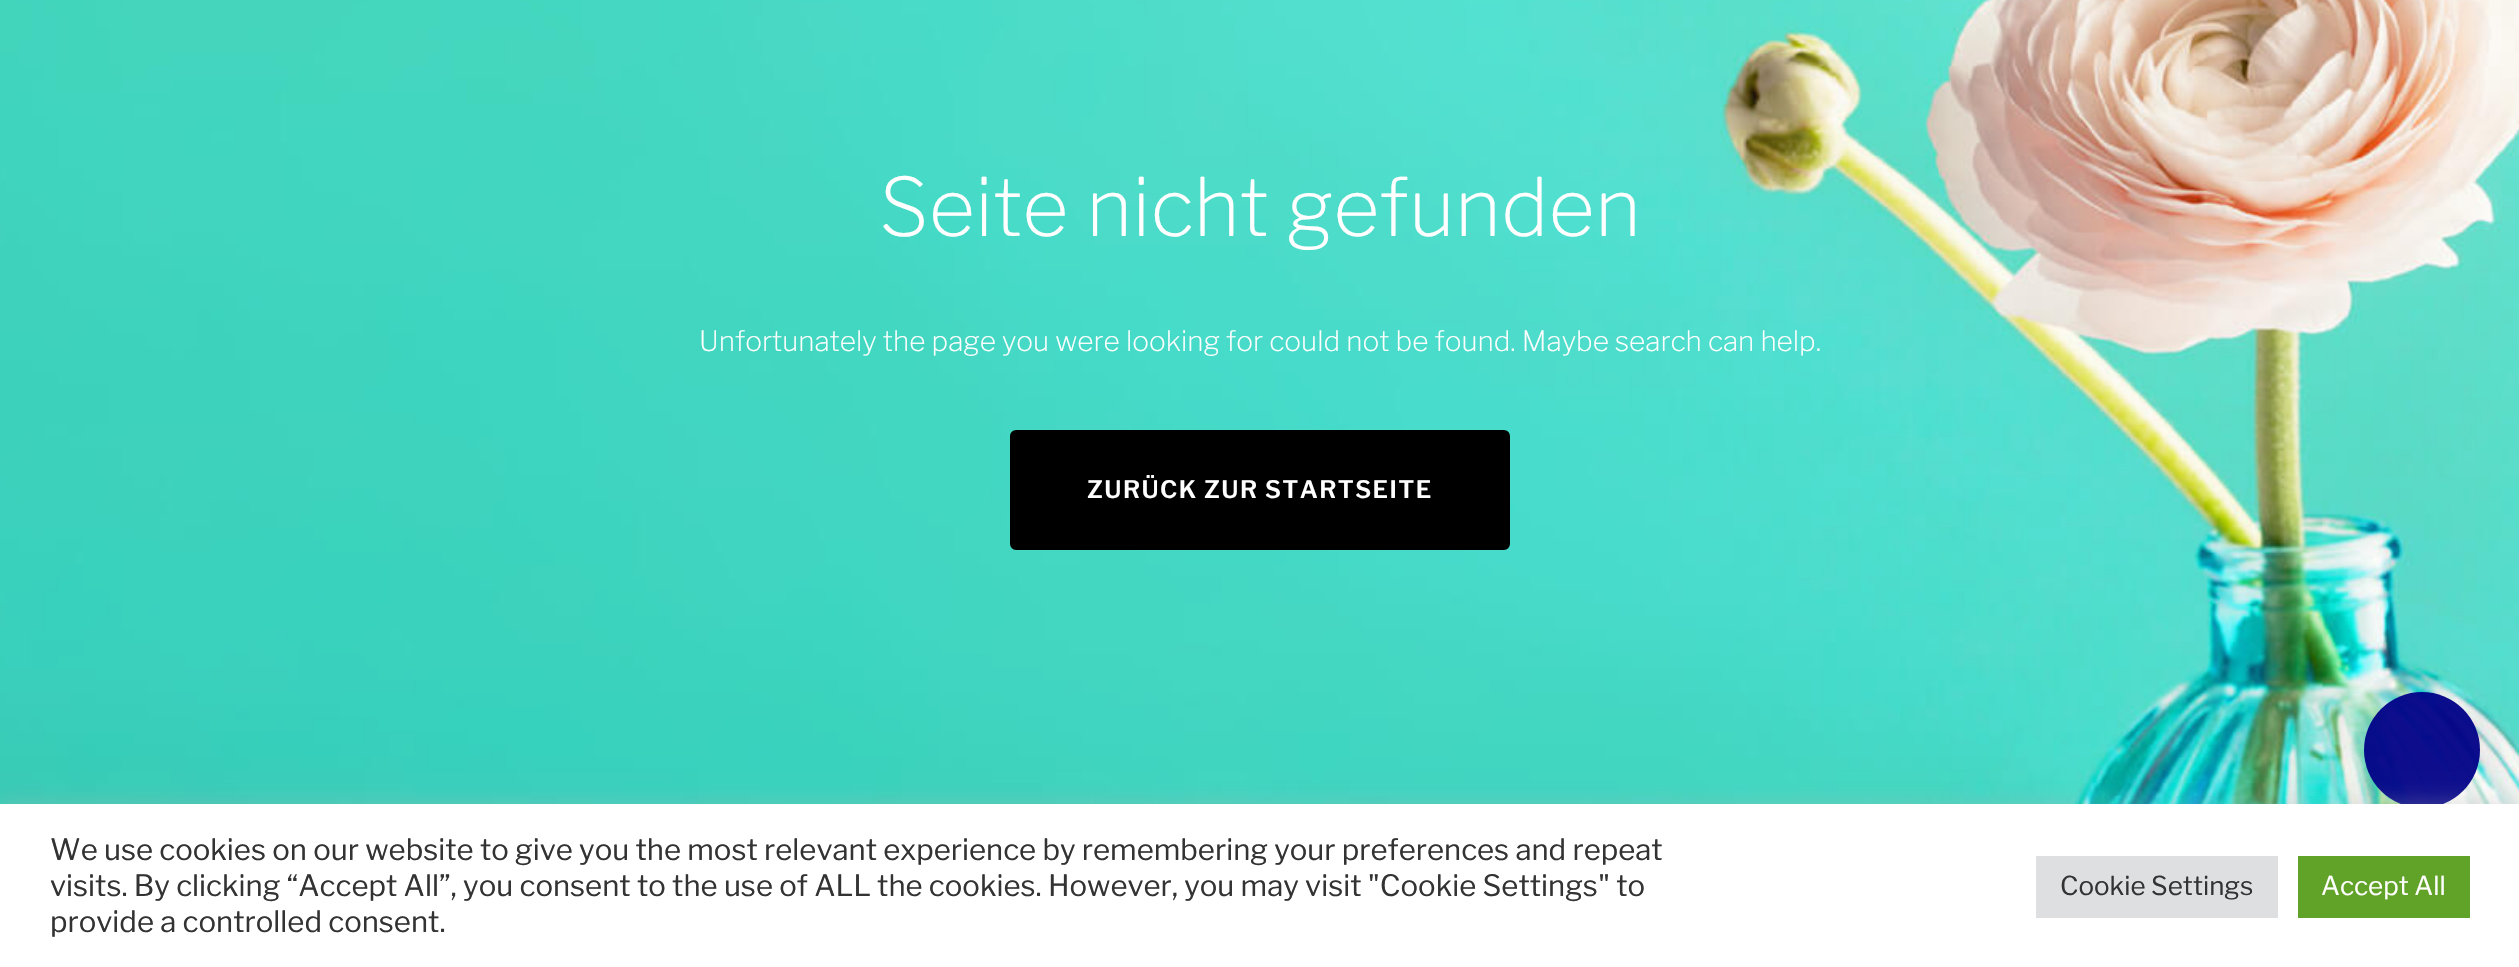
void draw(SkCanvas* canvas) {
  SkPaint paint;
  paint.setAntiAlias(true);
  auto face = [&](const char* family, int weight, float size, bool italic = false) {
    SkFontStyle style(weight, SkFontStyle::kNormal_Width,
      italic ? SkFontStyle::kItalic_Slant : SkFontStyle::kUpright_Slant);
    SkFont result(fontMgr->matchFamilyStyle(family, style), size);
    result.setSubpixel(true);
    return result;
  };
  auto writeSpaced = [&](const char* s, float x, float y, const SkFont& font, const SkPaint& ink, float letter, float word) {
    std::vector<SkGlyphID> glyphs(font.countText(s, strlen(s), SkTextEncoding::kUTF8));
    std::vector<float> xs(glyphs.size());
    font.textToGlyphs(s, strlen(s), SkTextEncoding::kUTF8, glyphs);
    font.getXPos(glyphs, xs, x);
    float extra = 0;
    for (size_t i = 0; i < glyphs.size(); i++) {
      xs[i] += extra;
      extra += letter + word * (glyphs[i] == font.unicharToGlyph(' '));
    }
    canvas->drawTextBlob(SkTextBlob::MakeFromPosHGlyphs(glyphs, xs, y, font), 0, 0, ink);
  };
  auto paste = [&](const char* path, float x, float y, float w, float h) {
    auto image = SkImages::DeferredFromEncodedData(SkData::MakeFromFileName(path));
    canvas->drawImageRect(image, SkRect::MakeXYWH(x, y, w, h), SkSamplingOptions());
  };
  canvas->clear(0xffffffff);
  paste("img/1.png", 0, 0, 2519, 804);
  paint.setColor(0xff000000);
  canvas->drawRoundRect(SkRect::MakeXYWH(1011, 431, 498, 118), 5, 5, paint);
  paint.setStroke(true);
  paint.setStrokeWidth(2);
  canvas->drawRoundRect(SkRect::MakeXYWH(1011, 431, 498, 118), 5, 5, paint);
  paint.setStroke(false);
  paint.setColor(0xf2010187);
  canvas->drawCircle(2422, 750, 58, paint);
  paint.setColor(0x4dacabab);
  paint.setMaskFilter(SkMaskFilter::MakeBlur(kNormal_SkBlurStyle, 10));
  canvas->drawRect(SkRect::MakeXYWH(0, 802, 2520, 164), paint);
  paint.setMaskFilter(nullptr);
  {
    const struct { float x, y, w, h; SkColor color; } items[] = {
      {0, 804, 2519, 163, 0xffffffff},
      {2036, 856, 242, 62, 0xffdedfe0},
      {2298, 856, 172, 62, 0xff61a229},
    };
    for (auto [x, y, w, h, color] : items) {
      paint.setColor(color);
      canvas->drawRect(SkRect::MakeXYWH(x, y, w, h), paint);
    }
  }
  auto f0 = face("Libre Franklin", 200, 80);
  paint.setColor(0xffffffff);
  canvas->drawString("Seite nicht gefunden", 879, 236, f0, paint);
  auto f1 = face("Libre Franklin", 200, 28);
  canvas->drawString("Unfortunately the page you were looking for could not be found. Maybe search can help.", 699, 351, f1, paint);
  auto f2 = face("Libre Franklin", 600, 24);
  writeSpaced("ZURÜCK ZUR STARTSEITE", 1087, 498, f2, paint, 1.4f, 0);
  auto f3 = face("Libre Franklin", 400, 29.33f);
  paint.setColor(0xff333333);
  {
    const struct { const char* s; float x, y; } items[] = {
      {"We use cookies on our website to give you the most relevant experience by remembering your preferences and repeat", 50, 860},
      {"visits. By clicking “Accept All”, you consent to the use of ALL the cookies. However, you may visit \"Cookie Settings\" to", 50, 896},
      {"provide a controlled consent.", 50, 932},
    };
    for (auto [s, x, y] : items) {
      canvas->drawString(s, x, y, f3, paint);
    }
  }
  auto f4 = face("Libre Franklin", 400, 26);
  canvas->drawString("Cookie Settings", 2060, 895, f4, paint);
  paint.setColor(0xffffffff);
  canvas->drawString("Accept All", 2321, 895, f4, paint);
}
